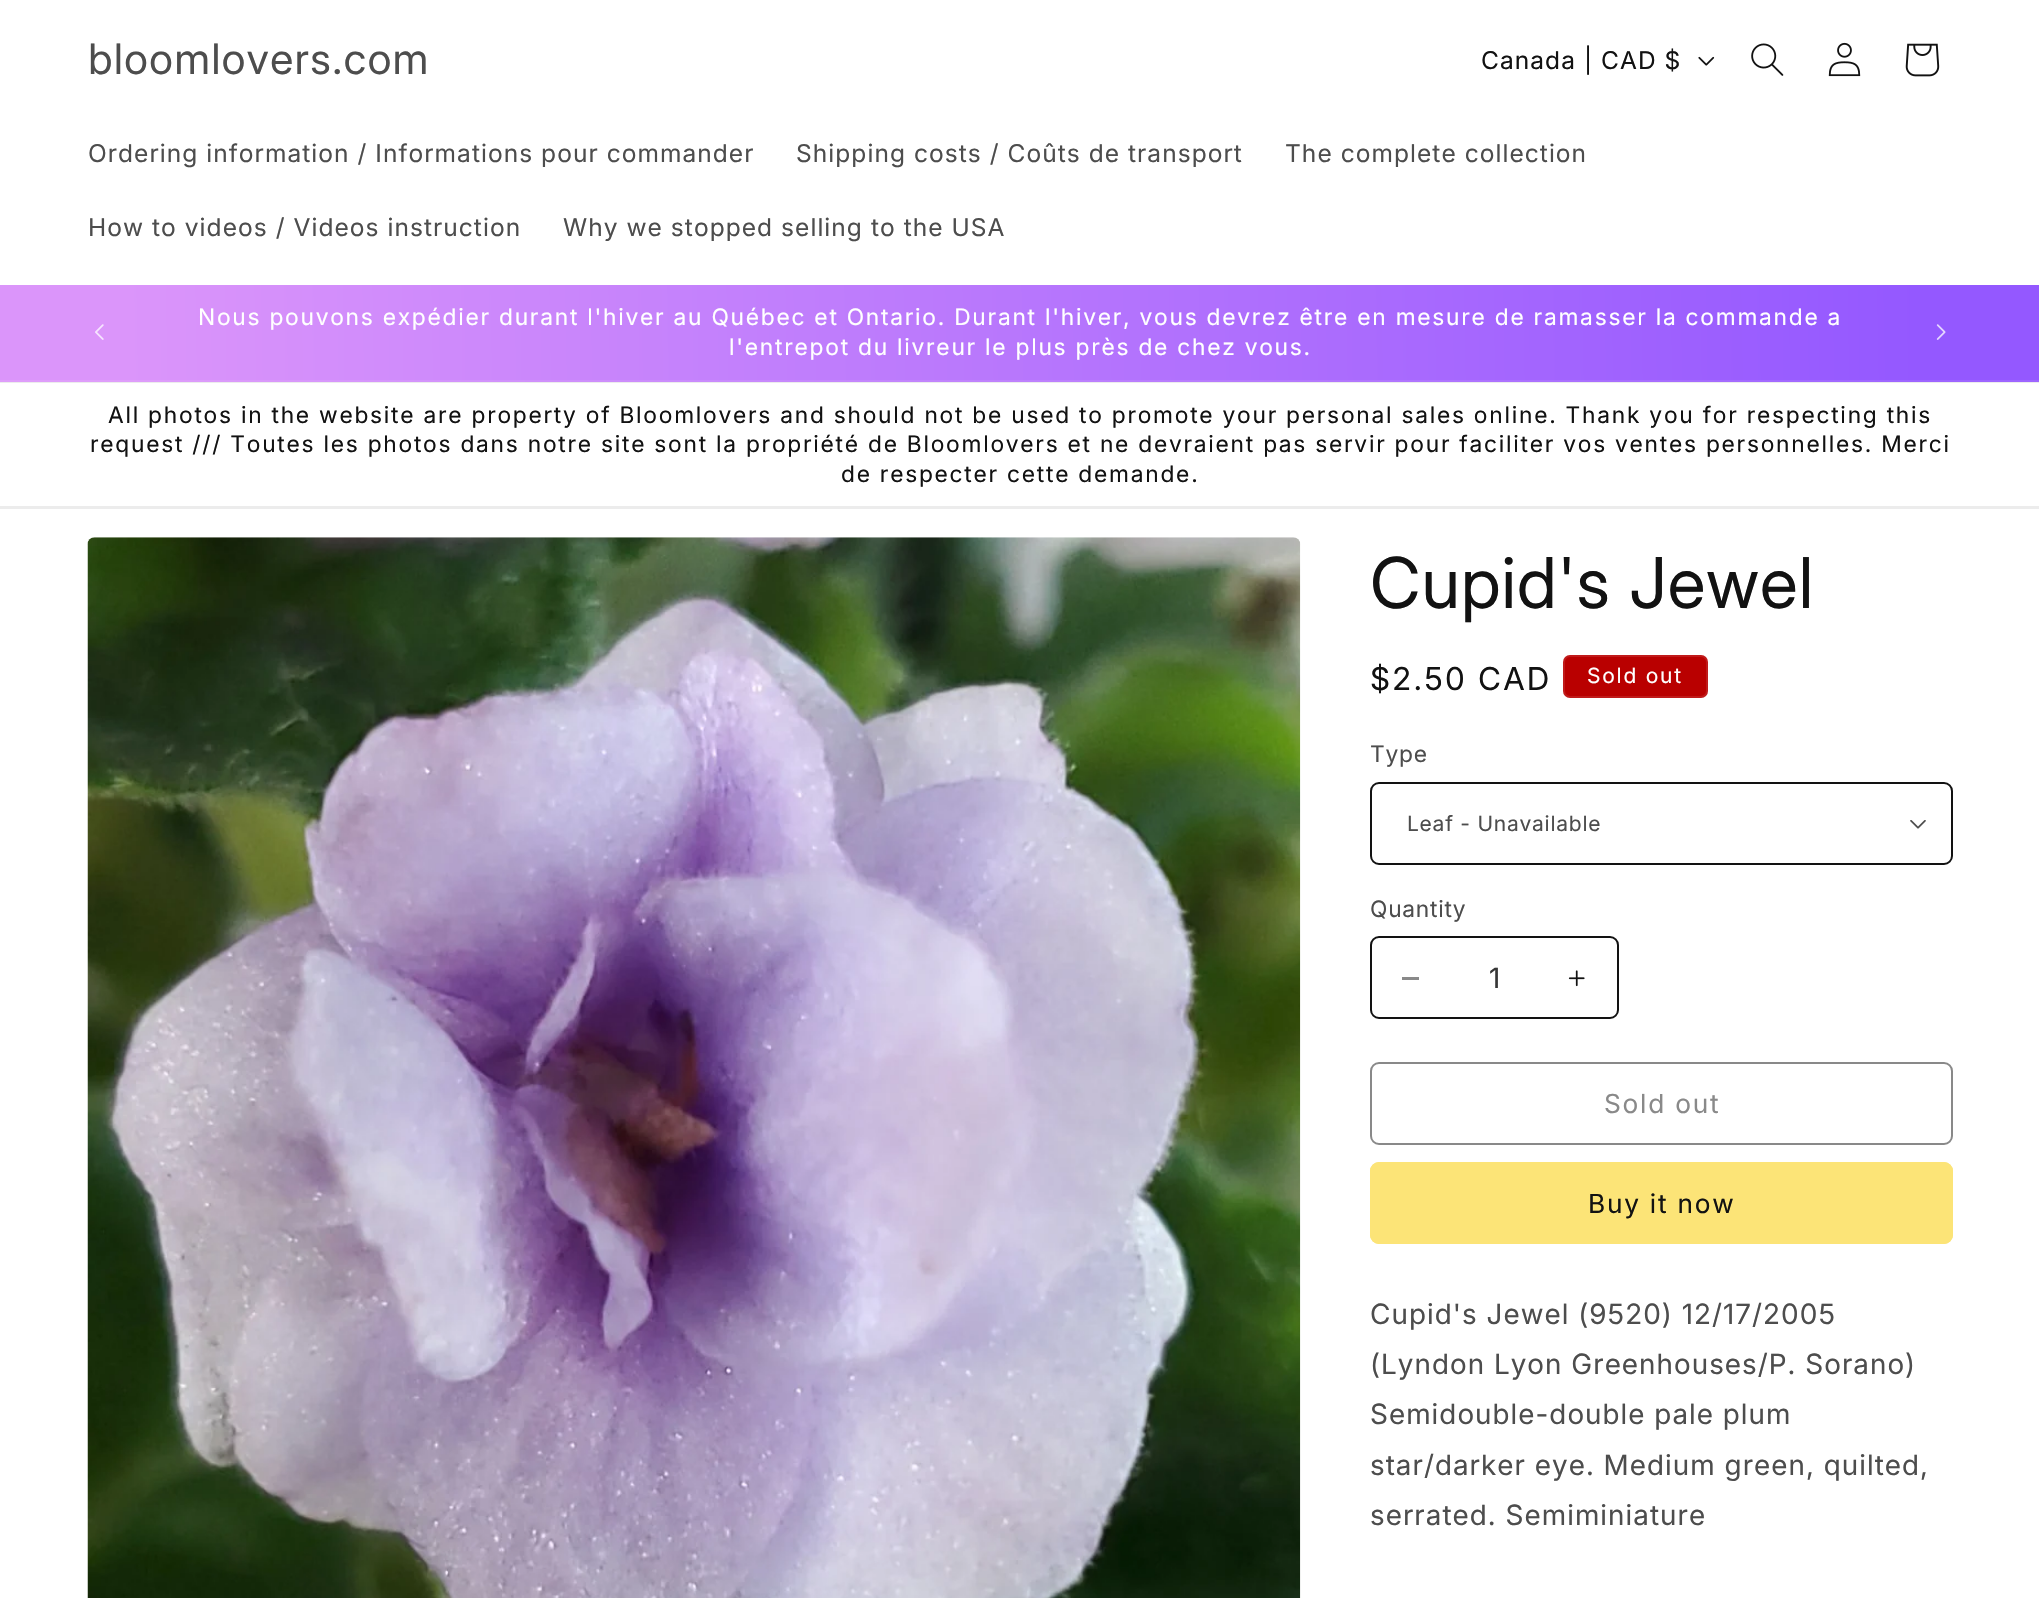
void draw(SkCanvas* canvas) {
  SkPaint paint;
  paint.setAntiAlias(true);
  auto face = [&](const char* family, int weight, float size, bool italic = false) {
    SkFontStyle style(weight, SkFontStyle::kNormal_Width,
      italic ? SkFontStyle::kItalic_Slant : SkFontStyle::kUpright_Slant);
    SkFont result(fontMgr->matchFamilyStyle(family, style), size);
    result.setSubpixel(true);
    return result;
  };
  auto writeSpaced = [&](const char* s, float x, float y, const SkFont& font, const SkPaint& ink, float letter, float word) {
    std::vector<SkGlyphID> glyphs(font.countText(s, strlen(s), SkTextEncoding::kUTF8));
    std::vector<float> xs(glyphs.size());
    font.textToGlyphs(s, strlen(s), SkTextEncoding::kUTF8, glyphs);
    font.getXPos(glyphs, xs, x);
    float extra = 0;
    for (size_t i = 0; i < glyphs.size(); i++) {
      xs[i] += extra;
      extra += letter + word * (glyphs[i] == font.unicharToGlyph(' '));
    }
    canvas->drawTextBlob(SkTextBlob::MakeFromPosHGlyphs(glyphs, xs, y, font), 0, 0, ink);
  };
  auto paste = [&](const char* path, float x, float y, float w, float h) {
    auto image = SkImages::DeferredFromEncodedData(SkData::MakeFromFileName(path));
    canvas->drawImageRect(image, SkRect::MakeXYWH(x, y, w, h), SkSamplingOptions());
  };
  canvas->clear(0xffffffff);
  paste("img/1.png", 1698, 56, 17, 10);
  paste("img/2.png", 1751, 43, 33, 33);
  paste("img/3.png", 1828, 42, 33, 35);
  paste("img/4.png", 1905, 43, 35, 34);
  {
    const SkColor colors[] = {0xffdb95fa, 0xff9458ff};
    const float stops[] = {0.07f, 0.94f};
    const SkPoint ends[] = {{-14, 818}, {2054, 782}};
    paint.setShader(SkGradientShader::MakeLinear(ends, colors, stops, 2, SkTileMode::kClamp));
    paint.setAlpha(255);
  }
  canvas->drawRect(SkRect::MakeXYWH(0, 285, 2039, 95), paint);
  {
    const SkColor colors[] = {0xffde9dfa, 0xff9d65ff};
    const float stops[] = {0.07f, 0.94f};
    const SkPoint ends[] = {{-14, 818}, {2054, 782}};
    paint.setShader(SkGradientShader::MakeLinear(ends, colors, stops, 2, SkTileMode::kClamp));
    paint.setAlpha(255);
  }
  canvas->drawRect(SkRect::MakeXYWH(0, 380, 2039, 2), paint);
  paste("img/5.png", 95, 324, 9, 16);
  paste("img/6.png", 1936, 324, 10, 16);
  paint.setShader(nullptr);
  paint.setColor(0xffececec);
  canvas->drawRect(SkRect::MakeXYWH(0, 382, 2039, 1), paint);
  canvas->drawRect(SkRect::MakeXYWH(0, 506, 2039, 3), paint);
  paste("img/7.png", 87, 537, 1214, 1061);
  paint.setColor(0xffb90000);
  canvas->drawRoundRect(SkRect::MakeXYWH(1563, 655, 145, 43), 7, 7, paint);
  paint.setStroke(true);
  paint.setStrokeWidth(2);
  paint.setColor(0x1affffff);
  canvas->drawRoundRect(SkRect::MakeXYWH(1564, 656, 143, 41), 6, 6, paint);
  paste("img/8.png", 1910, 820, 16, 9);
  paint.setColor(0xff121212);
  canvas->drawRoundRect(SkRect::MakeXYWH(1371, 783, 581, 81), 8, 8, paint);
  paint.setStroke(false);
  paint.setColor(0xff898989);
  canvas->drawRect(SkRect::MakeXYWH(1402, 977, 17, 3), paint);
  paste("img/9.png", 1568, 970, 17, 17);
  paint.setStroke(true);
  paint.setColor(0xff121212);
  canvas->drawRoundRect(SkRect::MakeXYWH(1371, 937, 247, 81), 8, 8, paint);
  paint.setColor(0xff898989);
  canvas->drawRoundRect(SkRect::MakeXYWH(1371, 1063, 581, 81), 8, 8, paint);
  paint.setStroke(false);
  paint.setColor(0xfffce477);
  canvas->drawRoundRect(SkRect::MakeXYWH(1370, 1162, 583, 82), 9, 9, paint);
  paint.setStroke(true);
  canvas->drawRoundRect(SkRect::MakeXYWH(1371, 1163, 581, 80), 8, 8, paint);
  auto f0 = face("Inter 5", 400, 42);
  paint.setStroke(false);
  paint.setColor(0xff4d4d4d);
  writeSpaced("bloomlovers.com", 88, 74, f0, paint, 1.05f, 0);
  auto f1 = face("Inter", 400, 24.5f);
  paint.setColor(0xff121212);
  writeSpaced("Canada | CAD $", 1481, 69, f1, paint, 1.05f, 0);
  paint.setColor(0xff4d4d4d);
  {
    const struct { const char* s; float x, y; } items[] = {
      {"Ordering information / Informations pour commander", 88, 162},
      {"Shipping costs / Coûts de transport", 796, 162},
      {"The complete collection", 1285, 162},
      {"How to videos / Videos instruction", 88, 236},
      {"Why we stopped selling to the USA", 563, 236},
    };
    for (auto [s, x, y] : items) {
      writeSpaced(s, x, y, f1, paint, 1.05f, 0);
    }
  }
  auto f2 = face("Inter", 400, 22.75f);
  paint.setColor(0xffffffff);
  writeSpaced("Nous pouvons expédier durant l'hiver au Québec et Ontario. Durant l'hiver, vous devrez être en mesure de ramasser la commande a", 198, 325, f2, paint, 1.75f, 0);
  writeSpaced("l'entrepot du livreur le plus près de chez vous.", 729, 355, f2, paint, 1.75f, 0);
  paint.setColor(0xff121212);
  {
    const struct { const char* s; float x, y; } items[] = {
      {"All photos in the website are property of Bloomlovers and should not be used to promote your personal sales online. Thank you for respecting this", 108, 423},
      {"request /// Toutes les photos dans notre site sont la propriété de Bloomlovers et ne devraient pas servir pour faciliter vos ventes personnelles. Merci", 90, 452},
      {"de respecter cette demande.", 841, 482},
    };
    for (auto [s, x, y] : items) {
      writeSpaced(s, x, y, f2, paint, 1.75f, 0);
    }
  }
  auto f3 = face("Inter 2", 400, 70);
  writeSpaced("Cupid's Jewel", 1370, 608, f3, paint, 1.05f, 0);
  auto f4 = face("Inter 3", 400, 31.5f);
  writeSpaced("$2.50 CAD", 1370, 690, f4, paint, 2.25f, 0);
  auto f5 = face("Inter", 400, 21);
  paint.setColor(0xffffffff);
  writeSpaced("Sold out", 1587, 683, f5, paint, 1.75f, 0);
  paint.setColor(0xff4d4d4d);
  writeSpaced("Type", 1370, 762, f2, paint, 0.75f, 0);
  writeSpaced("Leaf - Unavailable", 1407, 831, f5, paint, 0.75f, 0);
  writeSpaced("Quantity", 1370, 917, f2, paint, 0.75f, 0);
  auto f6 = face("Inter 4", 400, 28);
  paint.setColor(0xff363636);
  canvas->drawString("1", 1489, 988, f6, paint);
  auto f7 = face("Inter", 400, 26.25f);
  paint.setColor(0xff898989);
  writeSpaced("Sold out", 1604, 1113, f7, paint, 1.75f, 0);
  paint.setColor(0xff121212);
  writeSpaced("Buy it now", 1588, 1213, f7, paint, 1.75f, 0);
  paint.setColor(0xff4d4d4d);
  {
    const struct { const char* s; float x, y; } items[] = {
      {"Cupid's Jewel (9520) 12/17/2005", 1370, 1324},
      {"(Lyndon Lyon Greenhouses/P. Sorano)", 1370, 1374},
      {"Semidouble-double pale plum", 1370, 1424},
      {"star/darker eye. Medium green, quilted,", 1370, 1475},
      {"serrated. Semiminiature", 1370, 1525},
    };
    for (auto [s, x, y] : items) {
      writeSpaced(s, x, y, f6, paint, 1.05f, 0);
    }
  }
}
